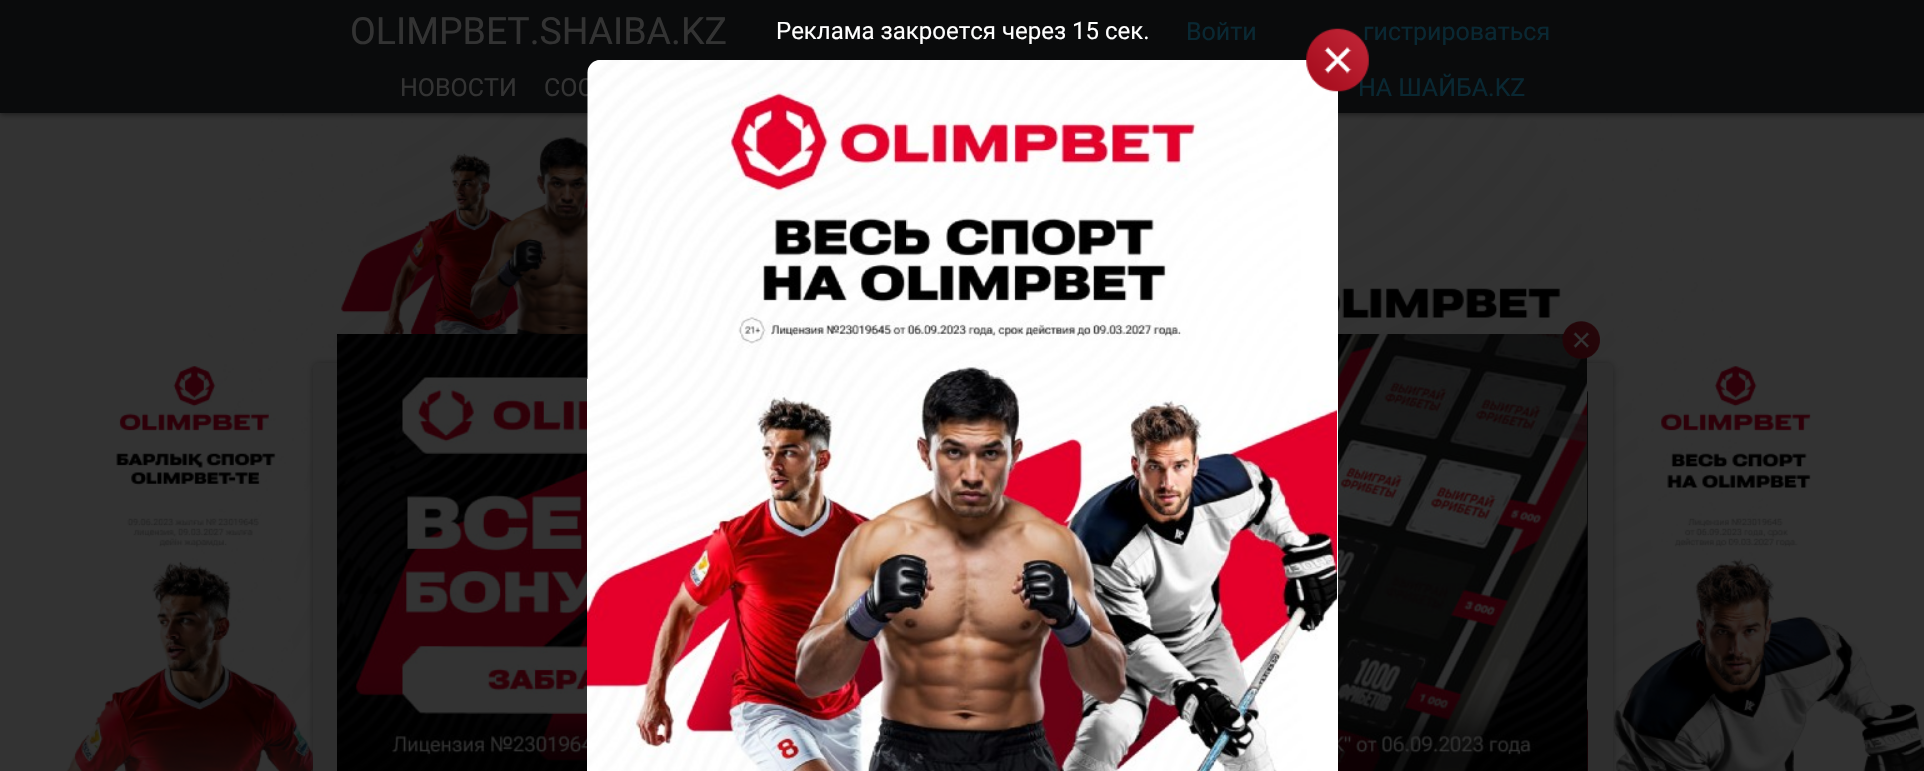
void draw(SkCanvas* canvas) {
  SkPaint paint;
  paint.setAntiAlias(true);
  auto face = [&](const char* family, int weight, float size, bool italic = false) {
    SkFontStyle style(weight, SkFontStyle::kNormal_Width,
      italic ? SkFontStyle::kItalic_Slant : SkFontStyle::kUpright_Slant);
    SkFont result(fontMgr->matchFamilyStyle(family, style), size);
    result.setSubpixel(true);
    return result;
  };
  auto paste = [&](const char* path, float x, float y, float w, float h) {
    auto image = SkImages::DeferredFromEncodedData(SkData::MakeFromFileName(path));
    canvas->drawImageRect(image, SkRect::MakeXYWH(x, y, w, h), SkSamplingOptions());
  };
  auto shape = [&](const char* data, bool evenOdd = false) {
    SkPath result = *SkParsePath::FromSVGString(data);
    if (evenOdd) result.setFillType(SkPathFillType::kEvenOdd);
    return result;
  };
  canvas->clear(0xffffffff);
  paste("img/1.png", 0, 113, 1924, 658);
  paint.setColor(0x66000000);
  paint.setMaskFilter(SkMaskFilter::MakeBlur(kNormal_SkBlurStyle, 2.5f));
  canvas->drawRect(SkRect::MakeXYWH(0, 3, 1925, 112), paint);
  paint.setMaskFilter(nullptr);
  paint.setColor(0xff0a0b0c);
  canvas->drawRect(SkRect::MakeXYWH(0, 0, 1924, 113), paint);
  paint.setColor(0x4d000000);
  paint.setMaskFilter(SkMaskFilter::MakeBlur(kNormal_SkBlurStyle, 3));
  canvas->drawRoundRect(SkRect::MakeXYWH(313, 363, 1300, 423), 6, 6, paint);
  paint.setMaskFilter(nullptr);
  paint.setColor(0xff2f2f2f);
  canvas->drawPath(shape("M319 363H1607C1610.5 363 1613 365.5 1613 369V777H313V369C313 365.5 315.5 363 319 363Z"), paint);
  paint.setColor(0xff212121);
  canvas->drawPath(shape("M338 678C338 681 341 683 344 683H1582C1585 683 1588 680 1588 677V395L1587 392L1588 675C1588 678 1585 681 1581 681H344C341 681 339 680 338 678Z"), paint);
  paint.setColor(0xff0c0c0c);
  canvas->drawRoundRect(SkRect::MakeXYWH(338, 388, 1250, 293), 6, 6, paint);
  paint.setColor(0x66000000);
  canvas->drawPath(shape("M344 388H1582C1585.5 388 1588 390.5 1588 394V461H338V394C338 390.5 340.5 388 344 388Z"), paint);
  paint.setColor(0xff150205);
  canvas->drawRoundRect(SkRect::MakeXYWH(1213, 706, 375, 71), 6, 6, paint);
  paste("img/5.png", 337, 334, 1250, 437);
  paste("img/4.png", 1562, 321, 38, 38);
  auto f0 = face("Roboto", 400, 37.5f);
  paint.setColor(0xff333333);
  canvas->drawString("OLIMPBET.SHAIBA.KZ", 350, 44, f0, paint);
  auto f1 = face("Roboto", 400, 25);
  paint.setColor(0xff092833);
  canvas->drawString("Войти", 1186, 40, f1, paint);
  canvas->drawString("гистрироваться", 1363, 40, f1, paint);
  paint.setColor(0xff333333);
  canvas->drawString("НОВОСТИ", 400, 96, f1, paint);
  canvas->drawString("СОС", 544, 96, f1, paint);
  paint.setColor(0xff092833);
  canvas->drawString("НА ШАЙБА.KZ", 1358, 96, f1, paint);
  auto f2 = face("Roboto", 400, 24);
  paint.setColor(0xffffffff);
  canvas->drawString("Реклама закроется через 15 сек.", 776, 39, f2, paint);
  canvas->drawPath(shape("M601 60H1325C1332 60 1338 66 1338 73V771H588V73C588 66 594 60 601 60Z"), paint);
  paste("img/3.png", 587, 60, 750, 711);
  paste("img/2.png", 1306, 28, 63, 64);
}
